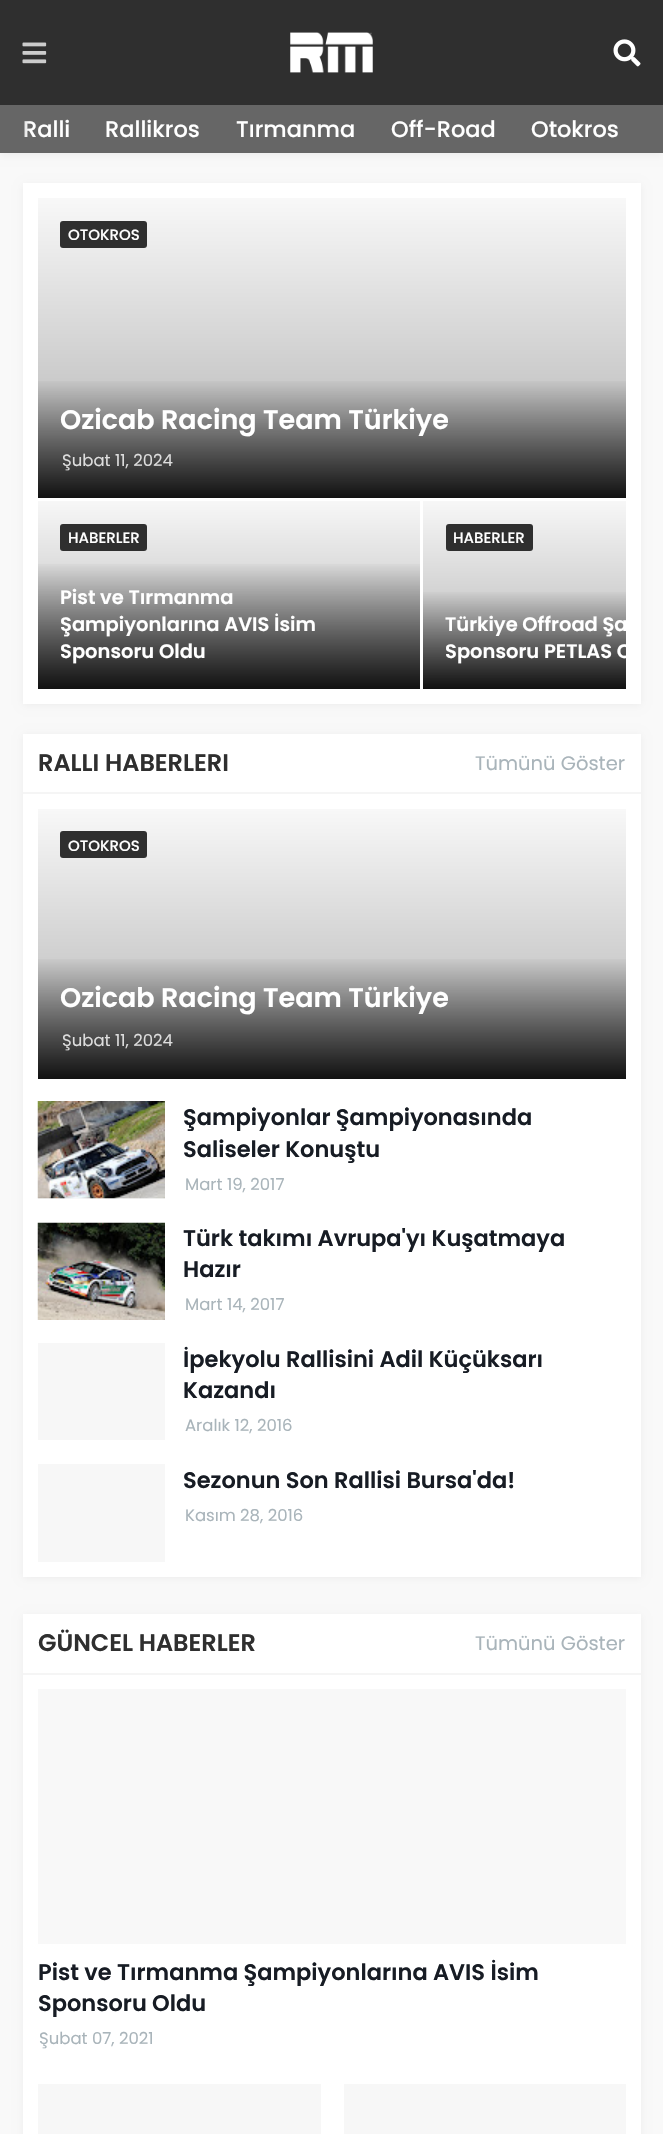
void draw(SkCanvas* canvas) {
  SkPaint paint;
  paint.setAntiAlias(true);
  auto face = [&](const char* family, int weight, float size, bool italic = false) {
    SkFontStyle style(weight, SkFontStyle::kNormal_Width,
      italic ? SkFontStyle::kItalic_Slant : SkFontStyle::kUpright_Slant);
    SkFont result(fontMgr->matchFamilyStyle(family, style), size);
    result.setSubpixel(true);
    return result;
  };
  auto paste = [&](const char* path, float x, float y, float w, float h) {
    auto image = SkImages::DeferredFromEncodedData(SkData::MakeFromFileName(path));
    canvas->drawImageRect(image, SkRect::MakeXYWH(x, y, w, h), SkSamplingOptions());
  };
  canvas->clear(0xfff9f9f9);
  paint.setColor(0x0d000000);
  paint.setMaskFilter(SkMaskFilter::MakeBlur(kNormal_SkBlurStyle, 4));
  canvas->drawRect(SkRect::MakeXYWH(0, 2, 663, 153), paint);
  paint.setMaskFilter(nullptr);
  paint.setColor(0xff2f2f2f);
  canvas->drawRect(SkRect::MakeXYWH(0, 0, 663, 105), paint);
  paste("img/1.png", 22, 42, 25, 22);
  paste("img/2.png", 290, 32, 83, 41);
  paste("img/3.png", 613, 39, 28, 28);
  paint.setColor(0xff666666);
  canvas->drawRect(SkRect::MakeXYWH(0, 105, 663, 48), paint);
  paint.setColor(0x0d000000);
  paint.setMaskFilter(SkMaskFilter::MakeBlur(kNormal_SkBlurStyle, 4));
  canvas->drawRect(SkRect::MakeXYWH(23, 185, 618, 520), paint);
  paint.setMaskFilter(nullptr);
  paint.setColor(0xffffffff);
  canvas->drawRect(SkRect::MakeXYWH(23, 183, 618, 521), paint);
  {
    const SkColor colors[] = {0xfff8f8f8, 0xffaeaeae};
    const float stops[] = {0, 1};
    const SkPoint ends[] = {{332, 198}, {332, 498}};
    paint.setShader(SkGradientShader::MakeLinear(ends, colors, stops, 2, SkTileMode::kClamp));
    paint.setAlpha(255);
  }
  canvas->drawRect(SkRect::MakeXYWH(38, 198, 588, 300), paint);
  paint.setShader(nullptr);
  paint.setColor(0xff2f2f2f);
  canvas->drawRoundRect(SkRect::MakeXYWH(60, 221, 87, 27), 3, 3, paint);
  {
    const SkColor colors[] = {0x00000000, 0xe6000000};
    const float stops[] = {0, 1};
    const SkPoint ends[] = {{332, 378}, {332, 498}};
    paint.setShader(SkGradientShader::MakeLinear(ends, colors, stops, 2, SkTileMode::kClamp));
    paint.setAlpha(255);
  }
  canvas->drawRect(SkRect::MakeXYWH(38, 381, 588, 117), paint);
  {
    const SkColor colors[] = {0xfff7f7f7, 0xffadadad};
    const float stops[] = {0, 1};
    const SkPoint ends[] = {{229, 501}, {229, 689}};
    paint.setShader(SkGradientShader::MakeLinear(ends, colors, stops, 2, SkTileMode::kClamp));
    paint.setAlpha(255);
  }
  canvas->drawRect(SkRect::MakeXYWH(38, 501, 382, 188), paint);
  paint.setShader(nullptr);
  paint.setColor(0xff2f2f2f);
  canvas->drawRoundRect(SkRect::MakeXYWH(60, 524, 87, 27), 3, 3, paint);
  {
    const SkColor colors[] = {0x00000000, 0xe6000000};
    const float stops[] = {0, 1};
    const SkPoint ends[] = {{229, 561}, {229, 689}};
    paint.setShader(SkGradientShader::MakeLinear(ends, colors, stops, 2, SkTileMode::kClamp));
    paint.setAlpha(255);
  }
  canvas->drawRect(SkRect::MakeXYWH(38, 564, 382, 125), paint);
  {
    const SkColor colors[] = {0xfff7f7f7, 0xffadadad};
    const float stops[] = {0, 1};
    const SkPoint ends[] = {{614, 501}, {614, 689}};
    paint.setShader(SkGradientShader::MakeLinear(ends, colors, stops, 2, SkTileMode::kClamp));
    paint.setAlpha(255);
  }
  canvas->drawRect(SkRect::MakeXYWH(423, 501, 203, 188), paint);
  paint.setShader(nullptr);
  paint.setColor(0xff2f2f2f);
  canvas->drawRoundRect(SkRect::MakeXYWH(446, 524, 87, 27), 3, 3, paint);
  {
    const SkColor colors[] = {0x00000000, 0xe6000000};
    const float stops[] = {0, 1};
    const SkPoint ends[] = {{614, 590}, {614, 689}};
    paint.setShader(SkGradientShader::MakeLinear(ends, colors, stops, 2, SkTileMode::kClamp));
    paint.setAlpha(255);
  }
  canvas->drawRect(SkRect::MakeXYWH(423, 592, 203, 97), paint);
  paint.setShader(nullptr);
  paint.setColor(0x0d000000);
  paint.setMaskFilter(SkMaskFilter::MakeBlur(kNormal_SkBlurStyle, 4));
  canvas->drawRect(SkRect::MakeXYWH(23, 735, 618, 843), paint);
  paint.setMaskFilter(nullptr);
  paint.setColor(0xffffffff);
  canvas->drawRect(SkRect::MakeXYWH(23, 734, 618, 843), paint);
  paint.setColor(0xfff5f5f5);
  canvas->drawRect(SkRect::MakeXYWH(23, 792, 618, 2), paint);
  {
    const SkColor colors[] = {0xfff8f8f8, 0xffaeaeae};
    const float stops[] = {0, 1};
    const SkPoint ends[] = {{332, 809}, {332, 1079}};
    paint.setShader(SkGradientShader::MakeLinear(ends, colors, stops, 2, SkTileMode::kClamp));
    paint.setAlpha(255);
  }
  canvas->drawRect(SkRect::MakeXYWH(38, 809, 588, 270), paint);
  paint.setShader(nullptr);
  paint.setColor(0xff2f2f2f);
  canvas->drawRoundRect(SkRect::MakeXYWH(60, 831, 87, 27), 3, 3, paint);
  {
    const SkColor colors[] = {0x00000000, 0xe6000000};
    const float stops[] = {0, 1};
    const SkPoint ends[] = {{332, 956}, {332, 1079}};
    paint.setShader(SkGradientShader::MakeLinear(ends, colors, stops, 2, SkTileMode::kClamp));
    paint.setAlpha(255);
  }
  canvas->drawRect(SkRect::MakeXYWH(38, 959, 588, 120), paint);
  paint.setShader(nullptr);
  paint.setColor(0xfff7f7f7);
  canvas->drawRect(SkRect::MakeXYWH(38, 1198, 127, 1), paint);
  paste("img/4.png", 37, 1101, 128, 98);
  paste("img/5.png", 37, 1222, 128, 98);
  canvas->drawRect(SkRect::MakeXYWH(38, 1343, 127, 97), paint);
  canvas->drawRect(SkRect::MakeXYWH(38, 1464, 127, 98), paint);
  paint.setColor(0x0d000000);
  paint.setMaskFilter(SkMaskFilter::MakeBlur(kNormal_SkBlurStyle, 4));
  canvas->drawRect(SkRect::MakeXYWH(23, 1616, 618, 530), paint);
  paint.setMaskFilter(nullptr);
  {
    const struct { float x, y, w, h; SkColor color; } items[] = {
      {23, 1614, 618, 520, 0xffffffff},
      {23, 1673, 618, 2, 0xfff5f5f5},
      {38, 1689, 588, 255, 0xfff8f8f8},
      {38, 2084, 283, 50, 0xfff7f7f7},
      {344, 2084, 282, 50, 0xfff7f7f7},
    };
    for (auto [x, y, w, h, color] : items) {
      paint.setColor(color);
      canvas->drawRect(SkRect::MakeXYWH(x, y, w, h), paint);
    }
  }
  auto f0 = face("Poppins", 500, 22.5f);
  paint.setColor(0xffffffff);
  {
    const struct { const char* s; float x, y; } items[] = {
      {"Ralli", 23, 137},
      {"Rallikros", 105, 137},
      {"Tırmanma", 236, 137},
      {"Off-Road", 391, 137},
      {"Otokros", 531, 137},
    };
    for (auto [s, x, y] : items) {
      canvas->drawString(s, x, y, f0, paint);
    }
  }
  {
    const SkColor colors[] = {0x00666666, 0xed666666};
    const float stops[] = {0, 1};
    const SkPoint ends[] = {{30, 129}, {0, 129}};
    paint.setShader(SkGradientShader::MakeLinear(ends, colors, stops, 2, SkTileMode::kClamp));
    paint.setAlpha(255);
  }
  canvas->drawRect(SkRect::MakeXYWH(24, 121, 5, 16), paint);
  auto f1 = face("Poppins", 500, 15);
  paint.setShader(nullptr);
  paint.setColor(0xffffffff);
  canvas->drawString("OTOKROS", 68, 240, f1, paint);
  auto f2 = face("Poppins", 600, 27);
  canvas->drawString("Ozicab Racing Team Türkiye", 60, 429, f2, paint);
  auto f3 = face("Poppins", 400, 16.5f);
  paint.setColor(0xffdddddd);
  canvas->drawString("Şubat 11, 2024", 62, 466, f3, paint);
  paint.setColor(0xffffffff);
  canvas->drawString("HABERLER", 68, 543, f1, paint);
  auto f4 = face("Poppins", 600, 19.5f);
  {
    const struct { const char* s; float x, y; } items[] = {
      {"Pist ve Tırmanma", 60, 604},
      {"Şampiyonlarına AVIS İsim", 60, 631},
      {"Sponsoru Oldu", 60, 658},
    };
    for (auto [s, x, y] : items) {
      canvas->drawString(s, x, y, f4, paint);
    }
  }
  canvas->drawString("HABERLER", 453, 543, f1, paint);
  canvas->save();
  canvas->clipRect(SkRect::MakeXYWH(423, 590, 203, 99));
  canvas->drawString("Türkiye Offroad Şa", 445, 631, f4, paint);
  canvas->drawString("Sponsoru PETLAS O", 445, 658, f4, paint);
  canvas->restore();
  auto f5 = face("Poppins", 600, 24);
  paint.setColor(0xff2f2f2f);
  canvas->drawString("RALLI HABERLERI", 38, 771, f5, paint);
  auto f6 = face("Poppins", 400, 19.5f);
  paint.setColor(0xffa9b4ba);
  canvas->drawString("Tümünü Göster", 475, 770, f6, paint);
  paint.setColor(0xffffffff);
  canvas->drawString("OTOKROS", 68, 851, f1, paint);
  canvas->drawString("Ozicab Racing Team Türkiye", 60, 1007, f2, paint);
  paint.setColor(0xffdddddd);
  canvas->drawString("Şubat 11, 2024", 62, 1046, f3, paint);
  auto f7 = face("Poppins", 600, 22.5f);
  paint.setColor(0xff171c24);
  canvas->drawString("Şampiyonlar Şampiyonasında", 183, 1125, f7, paint);
  canvas->drawString("Saliseler Konuştu", 183, 1157, f7, paint);
  paint.setColor(0xffa9b4ba);
  canvas->drawString("Mart 19, 2017", 185, 1190, f3, paint);
  paint.setColor(0xff171c24);
  canvas->drawString("Türk takımı Avrupa'yı Kuşatmaya", 183, 1246, f7, paint);
  canvas->drawString("Hazır", 183, 1277, f7, paint);
  paint.setColor(0xffa9b4ba);
  canvas->drawString("Mart 14, 2017", 185, 1310, f3, paint);
  paint.setColor(0xff171c24);
  canvas->drawString("İpekyolu Rallisini Adil Küçüksarı", 183, 1367, f7, paint);
  canvas->drawString("Kazandı", 183, 1398, f7, paint);
  paint.setColor(0xffa9b4ba);
  canvas->drawString("Aralık 12, 2016", 185, 1431, f3, paint);
  paint.setColor(0xff171c24);
  canvas->drawString("Sezonun Son Rallisi Bursa'da!", 183, 1488, f7, paint);
  paint.setColor(0xffa9b4ba);
  canvas->drawString("Kasım 28, 2016", 185, 1521, f3, paint);
  paint.setColor(0xff2f2f2f);
  canvas->drawString("GÜNCEL HABERLER", 38, 1651, f5, paint);
  paint.setColor(0xffa9b4ba);
  canvas->drawString("Tümünü Göster", 475, 1650, f6, paint);
  paint.setColor(0xff171c24);
  canvas->drawString("Pist ve Tırmanma Şampiyonlarına AVIS İsim", 38, 1980, f7, paint);
  canvas->drawString("Sponsoru Oldu", 38, 2011, f7, paint);
  paint.setColor(0xffa9b4ba);
  canvas->drawString("Şubat 07, 2021", 39, 2044, f3, paint);
}
